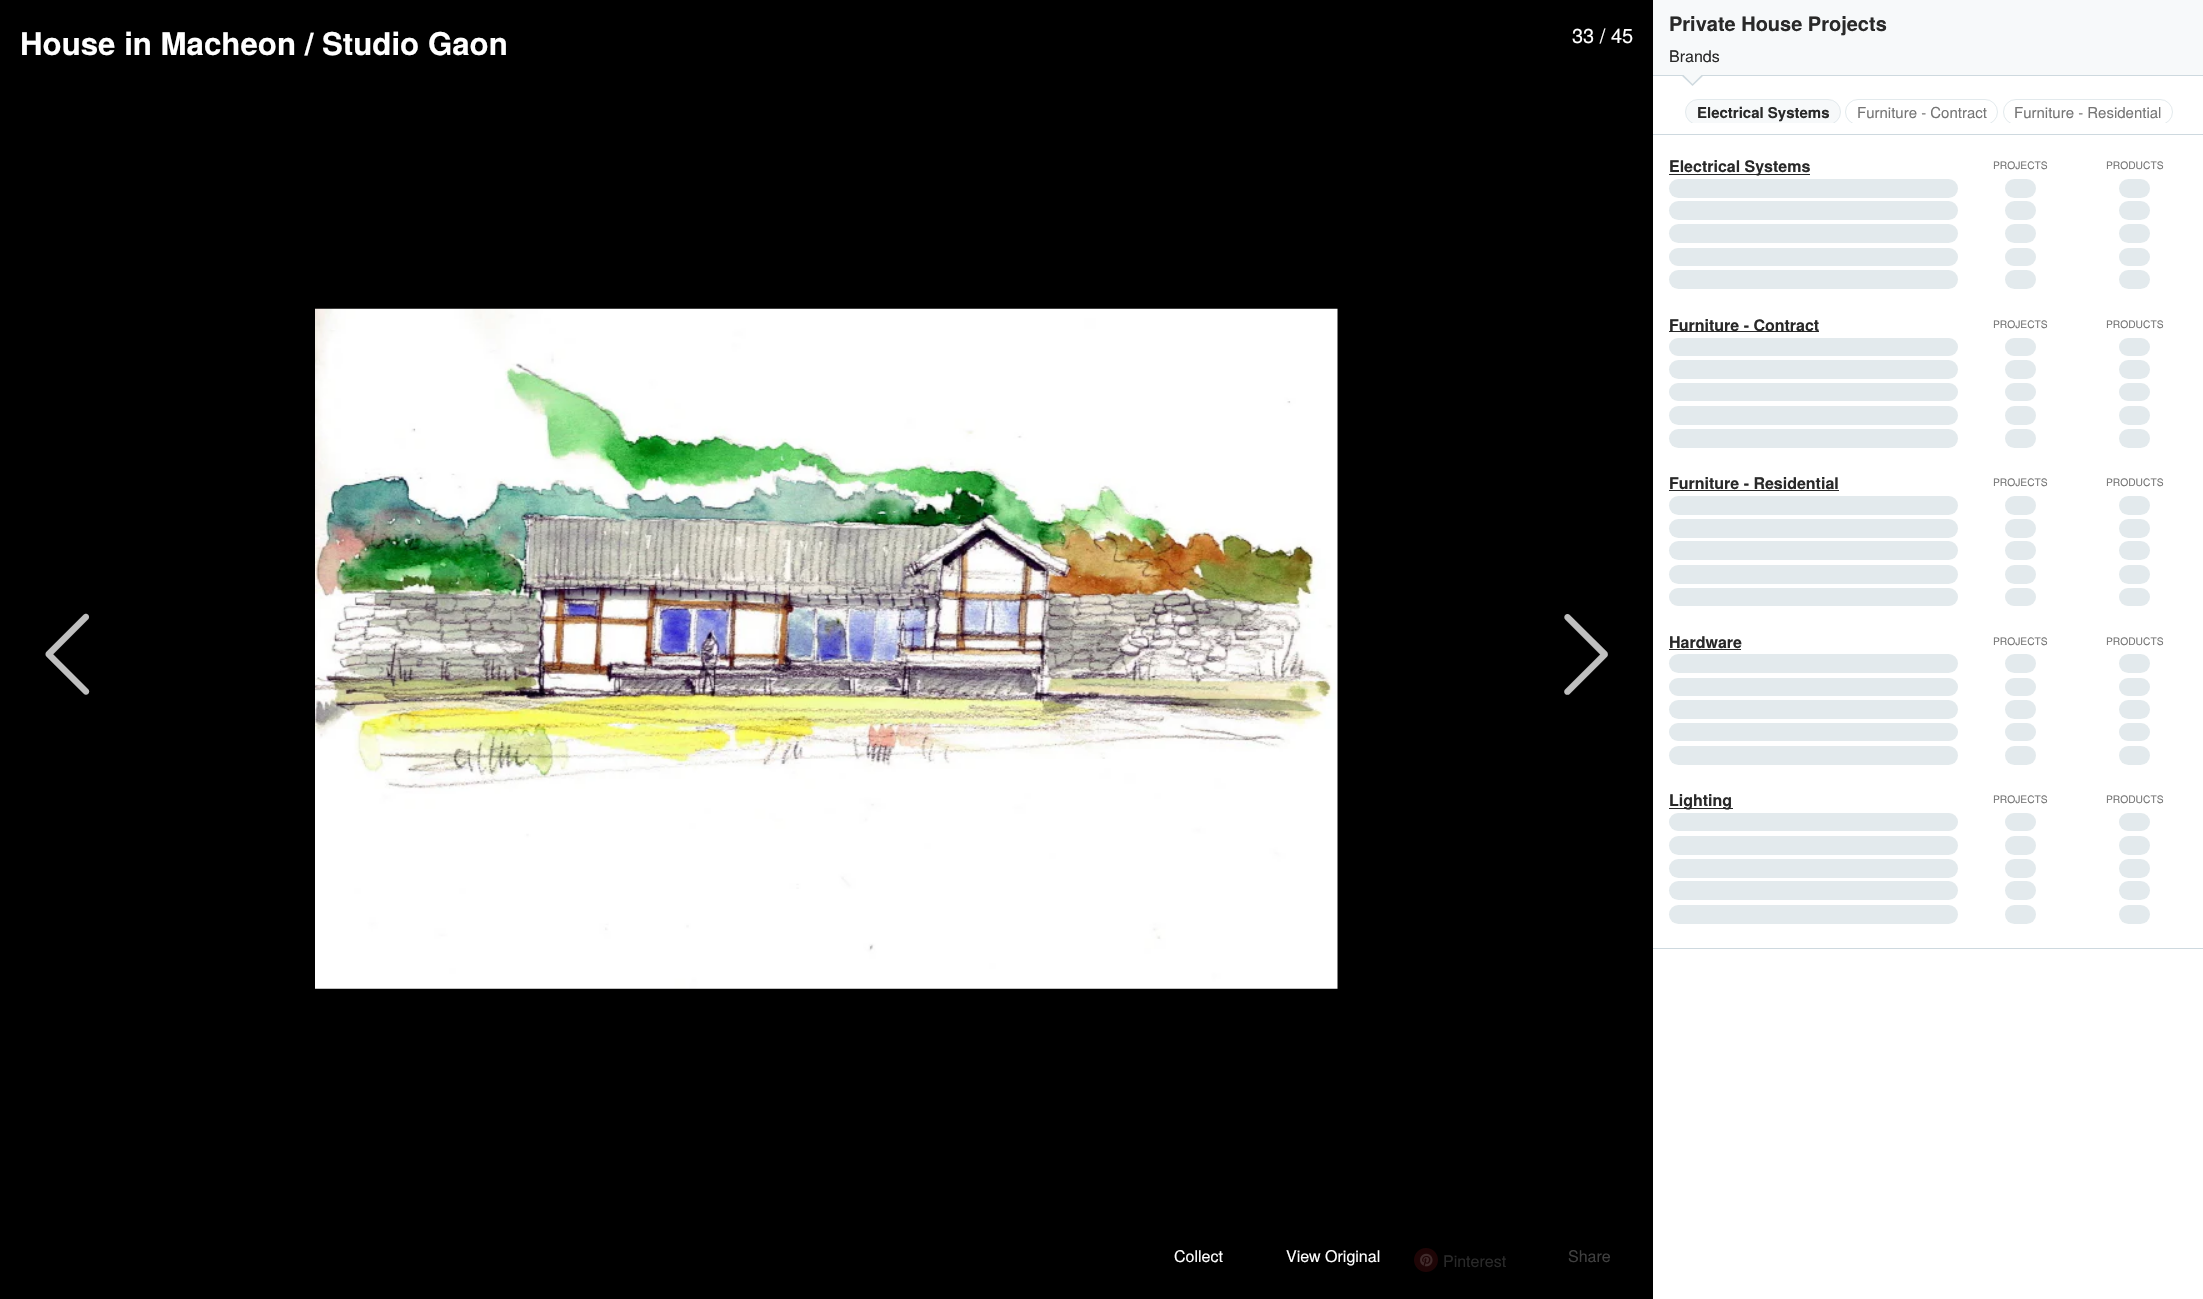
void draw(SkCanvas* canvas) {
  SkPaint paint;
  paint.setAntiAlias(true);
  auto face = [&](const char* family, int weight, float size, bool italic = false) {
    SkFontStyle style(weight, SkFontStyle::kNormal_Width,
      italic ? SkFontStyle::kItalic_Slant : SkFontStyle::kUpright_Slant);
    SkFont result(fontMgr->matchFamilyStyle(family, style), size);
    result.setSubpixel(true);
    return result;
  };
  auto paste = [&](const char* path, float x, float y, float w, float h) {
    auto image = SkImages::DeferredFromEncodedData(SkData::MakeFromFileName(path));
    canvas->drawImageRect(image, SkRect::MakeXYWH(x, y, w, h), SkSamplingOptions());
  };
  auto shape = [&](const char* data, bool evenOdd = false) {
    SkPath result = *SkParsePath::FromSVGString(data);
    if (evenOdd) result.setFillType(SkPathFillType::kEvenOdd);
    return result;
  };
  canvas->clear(0xffffffff);
  paint.setColor(0xff000000);
  canvas->drawRect(SkRect::MakeXYWH(0, 0, 1653, 1299), paint);
  paste("img/1.png", 315, 308, 1023, 681);
  paste("img/2.png", 45, 613, 45, 82);
  paste("img/3.png", 1564, 614, 44, 81);
  paste("img/4.png", 1414, 1248, 24, 24);
  paint.setColor(0xfff7f9fa);
  canvas->drawRect(SkRect::MakeXYWH(1653, 0, 550, 75), paint);
  paint.setColor(0xffced9df);
  canvas->drawRect(SkRect::MakeXYWH(1653, 75, 550, 1), paint);
  canvas->drawPath(shape("M1681 75H1704L1692.5 86Z"), paint);
  paint.setColor(0xfff7f9fa);
  canvas->drawPath(shape("M1682.5 74H1702.5L1692.5 84Z"), paint);
  canvas->save();
  canvas->clipRect(SkRect::MakeXYWH(1684, 91, 489, 32));
  canvas->drawRoundRect(SkRect::MakeXYWH(1685.5f, 99.5f, 155, 25), 12.5f, 12.5f, paint);
  paint.setStroke(true);
  paint.setStrokeWidth(1);
  paint.setColor(0xffe3eaed);
  canvas->drawRoundRect(SkRect::MakeXYWH(1685.5f, 99.5f, 155, 25), 12.5f, 12.5f, paint);
  canvas->drawRoundRect(SkRect::MakeXYWH(1845.5f, 99.5f, 152, 25), 12.5f, 12.5f, paint);
  canvas->drawRoundRect(SkRect::MakeXYWH(2003.5f, 99.5f, 169, 25), 12.5f, 12.5f, paint);
  canvas->restore();
  paint.setStroke(false);
  paint.setColor(0xffced9df);
  canvas->drawRect(SkRect::MakeXYWH(1653, 134, 550, 1), paint);
  paint.setColor(0xff292929);
  canvas->drawRect(SkRect::MakeXYWH(1669, 174, 141, 1), paint);
  paint.setColor(0xffe3eaed);
  canvas->drawRoundRect(SkRect::MakeXYWH(1669, 179, 289, 19), 9.5f, 9.5f, paint);
  canvas->drawRoundRect(SkRect::MakeXYWH(2005, 179, 31, 19), 9.5f, 9.5f, paint);
  canvas->drawRoundRect(SkRect::MakeXYWH(2119, 179, 31, 19), 9.5f, 9.5f, paint);
  canvas->drawRoundRect(SkRect::MakeXYWH(1669, 201, 289, 19), 9.5f, 9.5f, paint);
  canvas->drawRoundRect(SkRect::MakeXYWH(2005, 201, 31, 19), 9.5f, 9.5f, paint);
  canvas->drawRoundRect(SkRect::MakeXYWH(2119, 201, 31, 19), 9.5f, 9.5f, paint);
  canvas->drawRoundRect(SkRect::MakeXYWH(1669, 224, 289, 19), 9.5f, 9.5f, paint);
  canvas->drawRoundRect(SkRect::MakeXYWH(2005, 224, 31, 19), 9.5f, 9.5f, paint);
  canvas->drawRoundRect(SkRect::MakeXYWH(2119, 224, 31, 19), 9.5f, 9.5f, paint);
  canvas->drawRoundRect(SkRect::MakeXYWH(1669, 248, 289, 18), 9, 9, paint);
  canvas->drawRoundRect(SkRect::MakeXYWH(2005, 248, 31, 18), 9, 9, paint);
  canvas->drawRoundRect(SkRect::MakeXYWH(2119, 248, 31, 18), 9, 9, paint);
  canvas->drawRoundRect(SkRect::MakeXYWH(1669, 270, 289, 19), 9.5f, 9.5f, paint);
  canvas->drawRoundRect(SkRect::MakeXYWH(2005, 270, 31, 19), 9.5f, 9.5f, paint);
  canvas->drawRoundRect(SkRect::MakeXYWH(2119, 270, 31, 19), 9.5f, 9.5f, paint);
  paint.setColor(0xff292929);
  canvas->drawRect(SkRect::MakeXYWH(1669, 331, 150, 1), paint);
  paint.setColor(0xffe3eaed);
  canvas->drawRoundRect(SkRect::MakeXYWH(1669, 338, 289, 18), 9, 9, paint);
  canvas->drawRoundRect(SkRect::MakeXYWH(2005, 338, 31, 18), 9, 9, paint);
  canvas->drawRoundRect(SkRect::MakeXYWH(2119, 338, 31, 18), 9, 9, paint);
  canvas->drawRoundRect(SkRect::MakeXYWH(1669, 360, 289, 19), 9.5f, 9.5f, paint);
  canvas->drawRoundRect(SkRect::MakeXYWH(2005, 360, 31, 19), 9.5f, 9.5f, paint);
  canvas->drawRoundRect(SkRect::MakeXYWH(2119, 360, 31, 19), 9.5f, 9.5f, paint);
  canvas->drawRoundRect(SkRect::MakeXYWH(1669, 383, 289, 18), 9, 9, paint);
  canvas->drawRoundRect(SkRect::MakeXYWH(2005, 383, 31, 18), 9, 9, paint);
  canvas->drawRoundRect(SkRect::MakeXYWH(2119, 383, 31, 18), 9, 9, paint);
  canvas->drawRoundRect(SkRect::MakeXYWH(1669, 406, 289, 19), 9.5f, 9.5f, paint);
  canvas->drawRoundRect(SkRect::MakeXYWH(2005, 406, 31, 19), 9.5f, 9.5f, paint);
  canvas->drawRoundRect(SkRect::MakeXYWH(2119, 406, 31, 19), 9.5f, 9.5f, paint);
  canvas->drawRoundRect(SkRect::MakeXYWH(1669, 429, 289, 19), 9.5f, 9.5f, paint);
  canvas->drawRoundRect(SkRect::MakeXYWH(2005, 429, 31, 19), 9.5f, 9.5f, paint);
  canvas->drawRoundRect(SkRect::MakeXYWH(2119, 429, 31, 19), 9.5f, 9.5f, paint);
  paint.setColor(0xff292929);
  canvas->drawRect(SkRect::MakeXYWH(1669, 490, 170, 1), paint);
  paint.setColor(0xffe3eaed);
  canvas->drawRoundRect(SkRect::MakeXYWH(1669, 496, 289, 19), 9.5f, 9.5f, paint);
  canvas->drawRoundRect(SkRect::MakeXYWH(2005, 496, 31, 19), 9.5f, 9.5f, paint);
  canvas->drawRoundRect(SkRect::MakeXYWH(2119, 496, 31, 19), 9.5f, 9.5f, paint);
  canvas->drawRoundRect(SkRect::MakeXYWH(1669, 519, 289, 19), 9.5f, 9.5f, paint);
  canvas->drawRoundRect(SkRect::MakeXYWH(2005, 519, 31, 19), 9.5f, 9.5f, paint);
  canvas->drawRoundRect(SkRect::MakeXYWH(2119, 519, 31, 19), 9.5f, 9.5f, paint);
  canvas->drawRoundRect(SkRect::MakeXYWH(1669, 541, 289, 19), 9.5f, 9.5f, paint);
  canvas->drawRoundRect(SkRect::MakeXYWH(2005, 541, 31, 19), 9.5f, 9.5f, paint);
  canvas->drawRoundRect(SkRect::MakeXYWH(2119, 541, 31, 19), 9.5f, 9.5f, paint);
  canvas->drawRoundRect(SkRect::MakeXYWH(1669, 565, 289, 19), 9.5f, 9.5f, paint);
  canvas->drawRoundRect(SkRect::MakeXYWH(2005, 565, 31, 19), 9.5f, 9.5f, paint);
  canvas->drawRoundRect(SkRect::MakeXYWH(2119, 565, 31, 19), 9.5f, 9.5f, paint);
  canvas->drawRoundRect(SkRect::MakeXYWH(1669, 588, 289, 18), 9, 9, paint);
  canvas->drawRoundRect(SkRect::MakeXYWH(2005, 588, 31, 18), 9, 9, paint);
  canvas->drawRoundRect(SkRect::MakeXYWH(2119, 588, 31, 18), 9, 9, paint);
  paint.setColor(0xff292929);
  canvas->drawRect(SkRect::MakeXYWH(1669, 649, 72, 1), paint);
  paint.setColor(0xffe3eaed);
  canvas->drawRoundRect(SkRect::MakeXYWH(1669, 654, 289, 19), 9.5f, 9.5f, paint);
  canvas->drawRoundRect(SkRect::MakeXYWH(2005, 654, 31, 19), 9.5f, 9.5f, paint);
  canvas->drawRoundRect(SkRect::MakeXYWH(2119, 654, 31, 19), 9.5f, 9.5f, paint);
  canvas->drawRoundRect(SkRect::MakeXYWH(1669, 678, 289, 18), 9, 9, paint);
  canvas->drawRoundRect(SkRect::MakeXYWH(2005, 678, 31, 18), 9, 9, paint);
  canvas->drawRoundRect(SkRect::MakeXYWH(2119, 678, 31, 18), 9, 9, paint);
  canvas->drawRoundRect(SkRect::MakeXYWH(1669, 700, 289, 19), 9.5f, 9.5f, paint);
  canvas->drawRoundRect(SkRect::MakeXYWH(2005, 700, 31, 19), 9.5f, 9.5f, paint);
  canvas->drawRoundRect(SkRect::MakeXYWH(2119, 700, 31, 19), 9.5f, 9.5f, paint);
  canvas->drawRoundRect(SkRect::MakeXYWH(1669, 723, 289, 18), 9, 9, paint);
  canvas->drawRoundRect(SkRect::MakeXYWH(2005, 723, 31, 18), 9, 9, paint);
  canvas->drawRoundRect(SkRect::MakeXYWH(2119, 723, 31, 18), 9, 9, paint);
  canvas->drawRoundRect(SkRect::MakeXYWH(1669, 746, 289, 19), 9.5f, 9.5f, paint);
  canvas->drawRoundRect(SkRect::MakeXYWH(2005, 746, 31, 19), 9.5f, 9.5f, paint);
  canvas->drawRoundRect(SkRect::MakeXYWH(2119, 746, 31, 19), 9.5f, 9.5f, paint);
  paint.setColor(0xff292929);
  canvas->drawRect(SkRect::MakeXYWH(1669, 808, 64, 1), paint);
  paint.setColor(0xffe3eaed);
  canvas->drawRoundRect(SkRect::MakeXYWH(1669, 813, 289, 18), 9, 9, paint);
  canvas->drawRoundRect(SkRect::MakeXYWH(2005, 813, 31, 18), 9, 9, paint);
  canvas->drawRoundRect(SkRect::MakeXYWH(2119, 813, 31, 18), 9, 9, paint);
  canvas->drawRoundRect(SkRect::MakeXYWH(1669, 836, 289, 19), 9.5f, 9.5f, paint);
  canvas->drawRoundRect(SkRect::MakeXYWH(2005, 836, 31, 19), 9.5f, 9.5f, paint);
  canvas->drawRoundRect(SkRect::MakeXYWH(2119, 836, 31, 19), 9.5f, 9.5f, paint);
  canvas->drawRoundRect(SkRect::MakeXYWH(1669, 859, 289, 19), 9.5f, 9.5f, paint);
  canvas->drawRoundRect(SkRect::MakeXYWH(2005, 859, 31, 19), 9.5f, 9.5f, paint);
  canvas->drawRoundRect(SkRect::MakeXYWH(2119, 859, 31, 19), 9.5f, 9.5f, paint);
  canvas->drawRoundRect(SkRect::MakeXYWH(1669, 881, 289, 19), 9.5f, 9.5f, paint);
  canvas->drawRoundRect(SkRect::MakeXYWH(2005, 881, 31, 19), 9.5f, 9.5f, paint);
  canvas->drawRoundRect(SkRect::MakeXYWH(2119, 881, 31, 19), 9.5f, 9.5f, paint);
  canvas->drawRoundRect(SkRect::MakeXYWH(1669, 905, 289, 19), 9.5f, 9.5f, paint);
  canvas->drawRoundRect(SkRect::MakeXYWH(2005, 905, 31, 19), 9.5f, 9.5f, paint);
  canvas->drawRoundRect(SkRect::MakeXYWH(2119, 905, 31, 19), 9.5f, 9.5f, paint);
  paint.setColor(0xffced9df);
  canvas->drawRect(SkRect::MakeXYWH(1653, 948, 550, 1), paint);
  auto f0 = face("TeX Gyre Heros", 700, 31.25f);
  paint.setColor(0xffffffff);
  canvas->drawString("House in Macheon / Studio Gaon", 20, 55, f0, paint);
  auto f1 = face("TeX Gyre Heros", 400, 20);
  canvas->drawString("33 / 45", 1572, 43, f1, paint);
  auto f2 = face("TeX Gyre Heros", 400, 16);
  canvas->drawString("Collect", 1174, 1262, f2, paint);
  canvas->drawString("View Original", 1286, 1262, f2, paint);
  paint.setColor(0xff292929);
  canvas->drawString("Pinterest", 1443, 1267, f2, paint);
  paint.setColor(0xff404040);
  canvas->drawString("Share", 1568, 1262, f2, paint);
  auto f3 = face("TeX Gyre Heros", 700, 20);
  paint.setColor(0xff292929);
  canvas->drawString("Private House Projects", 1669, 31, f3, paint);
  canvas->drawString("Brands", 1669, 62, f2, paint);
  auto f4 = face("TeX Gyre Heros", 700, 15);
  canvas->drawString("Electrical Systems", 1697, 118, f4, paint);
  auto f5 = face("TeX Gyre Heros", 400, 15);
  paint.setColor(0xff757575);
  canvas->drawString("Furniture - Contract", 1857, 118, f5, paint);
  canvas->drawString("Furniture - Residential", 2014, 118, f5, paint);
  auto f6 = face("TeX Gyre Heros", 700, 16);
  paint.setColor(0xff292929);
  canvas->drawString("Electrical Systems", 1669, 172, f6, paint);
  auto f7 = face("TeX Gyre Heros", 400, 10.25f);
  paint.setColor(0xff757575);
  canvas->drawString("PROJECTS", 1993, 169, f7, paint);
  canvas->drawString("PRODUCTS", 2106, 169, f7, paint);
  paint.setColor(0xff292929);
  canvas->drawString("Furniture - Contract", 1669, 331, f6, paint);
  paint.setColor(0xff757575);
  canvas->drawString("PROJECTS", 1993, 328, f7, paint);
  canvas->drawString("PRODUCTS", 2106, 328, f7, paint);
  paint.setColor(0xff292929);
  canvas->drawString("Furniture - Residential", 1669, 489, f6, paint);
  paint.setColor(0xff757575);
  canvas->drawString("PROJECTS", 1993, 486, f7, paint);
  canvas->drawString("PRODUCTS", 2106, 486, f7, paint);
  paint.setColor(0xff292929);
  canvas->drawString("Hardware", 1669, 648, f6, paint);
  paint.setColor(0xff757575);
  canvas->drawString("PROJECTS", 1993, 645, f7, paint);
  canvas->drawString("PRODUCTS", 2106, 645, f7, paint);
  paint.setColor(0xff292929);
  canvas->drawString("Lighting", 1669, 806, f6, paint);
  paint.setColor(0xff757575);
  canvas->drawString("PROJECTS", 1993, 803, f7, paint);
  canvas->drawString("PRODUCTS", 2106, 803, f7, paint);
}
